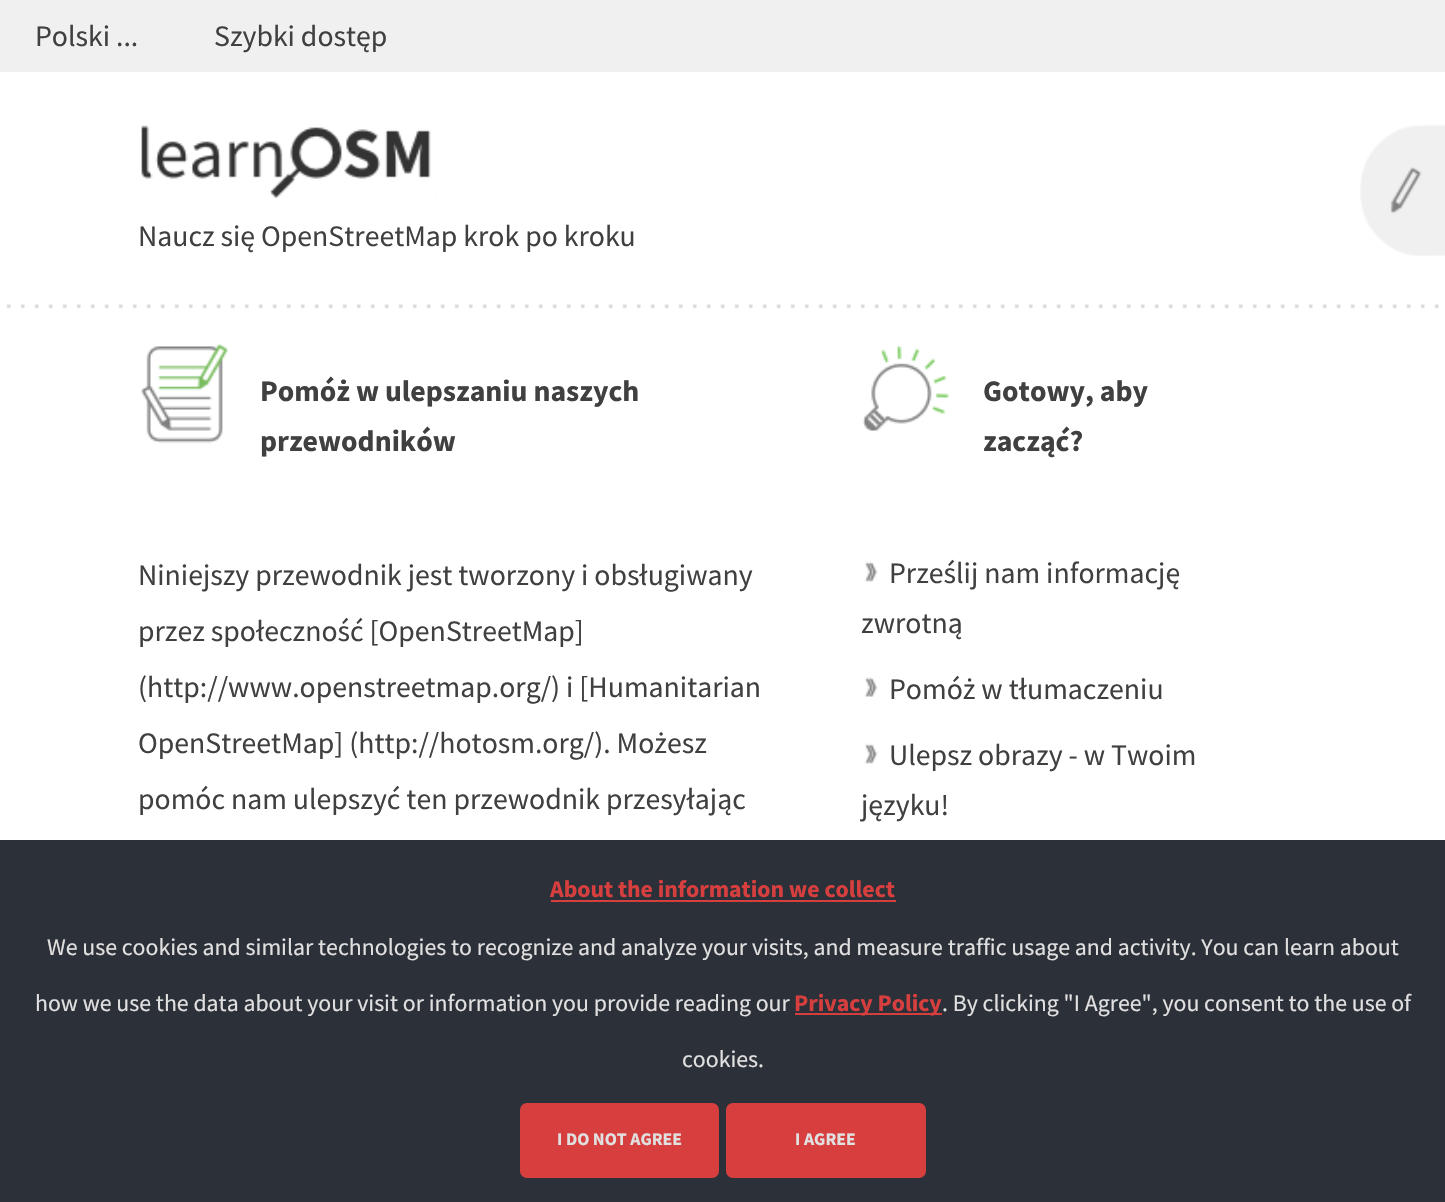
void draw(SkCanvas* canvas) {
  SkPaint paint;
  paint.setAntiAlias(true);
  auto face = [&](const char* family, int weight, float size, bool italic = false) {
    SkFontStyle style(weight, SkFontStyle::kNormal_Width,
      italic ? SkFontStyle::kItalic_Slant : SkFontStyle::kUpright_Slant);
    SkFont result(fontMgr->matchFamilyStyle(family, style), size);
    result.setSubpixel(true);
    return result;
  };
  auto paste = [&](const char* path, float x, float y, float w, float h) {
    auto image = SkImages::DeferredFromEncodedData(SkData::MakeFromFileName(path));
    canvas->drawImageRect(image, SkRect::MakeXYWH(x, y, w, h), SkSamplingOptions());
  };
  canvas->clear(0xffffffff);
  paint.setColor(0xfff0f0f0);
  canvas->drawRect(SkRect::MakeXYWH(0, 0, 1445, 72), paint);
  paste("img/1.png", 6, 304, 1433, 5);
  paste("img/2.png", 141, 125, 295, 73);
  paste("img/3.png", 1360, 124, 85, 132);
  paste("img/4.png", 141, 344, 87, 100);
  paste("img/5.png", 862, 346, 87, 85);
  paste("img/6.png", 864, 561, 14, 21);
  paste("img/7.png", 864, 677, 14, 20);
  paste("img/6.png", 864, 743, 14, 21);
  {
    const struct { float x, y, w, h; SkColor color; } items[] = {
      {0, 840, 1445, 362, 0xff2c3038},
      {551, 900, 345, 2, 0xffd73f3f},
      {795, 1013, 147, 2, 0xffd73f3f},
    };
    for (auto [x, y, w, h, color] : items) {
      paint.setColor(color);
      canvas->drawRect(SkRect::MakeXYWH(x, y, w, h), paint);
    }
  }
  canvas->drawRoundRect(SkRect::MakeXYWH(522, 1105, 195, 71), 5, 5, paint);
  paint.setStroke(true);
  paint.setStrokeWidth(4);
  canvas->drawRoundRect(SkRect::MakeXYWH(522, 1105, 195, 71), 5, 5, paint);
  paint.setStroke(false);
  canvas->drawRoundRect(SkRect::MakeXYWH(728, 1105, 196, 71), 5, 5, paint);
  paint.setStroke(true);
  canvas->drawRoundRect(SkRect::MakeXYWH(728, 1105, 196, 71), 5, 5, paint);
  auto f0 = face("Source Sans Pro", 400, 29.75f);
  paint.setStroke(false);
  paint.setColor(0xff404040);
  {
    const struct { const char* s; float x, y; } items[] = {
      {"Polski ...", 35, 46},
      {"Szybki dostęp", 214, 46},
      {"Naucz się OpenStreetMap krok po kroku", 138, 246},
    };
    for (auto [s, x, y] : items) {
      canvas->drawString(s, x, y, f0, paint);
    }
  }
  auto f1 = face("Source Sans Pro", 700, 29.75f);
  canvas->drawString("Pomóż w ulepszaniu naszych", 260, 401, f1, paint);
  canvas->drawString("przewodników", 260, 451, f1, paint);
  {
    const struct { const char* s; float x, y; } items[] = {
      {"Niniejszy przewodnik jest tworzony i obsługiwany", 138, 585},
      {"przez społeczność [OpenStreetMap]", 138, 641},
      {"(http://www.openstreetmap.org/) i [Humanitarian", 138, 697},
      {"OpenStreetMap] (http://hotosm.org/). Możesz", 138, 753},
      {"pomóc nam ulepszyć ten przewodnik przesyłając", 138, 809},
    };
    for (auto [s, x, y] : items) {
      canvas->drawString(s, x, y, f0, paint);
    }
  }
  canvas->drawString("Gotowy, aby", 983, 401, f1, paint);
  canvas->drawString("zacząć?", 983, 451, f1, paint);
  {
    const struct { const char* s; float x, y; } items[] = {
      {"Prześlij nam informację", 889, 583},
      {"zwrotną", 861, 633},
      {"Pomóż w tłumaczeniu", 889, 699},
      {"Ulepsz obrazy - w Twoim", 889, 765},
      {"języku!", 861, 815},
    };
    for (auto [s, x, y] : items) {
      canvas->drawString(s, x, y, f0, paint);
    }
  }
  auto f2 = face("Source Sans Pro", 700, 23.8f);
  paint.setColor(0xffd73f3f);
  canvas->drawString("About the information we collect", 550, 897, f2, paint);
  auto f3 = face("Source Sans Pro", 400, 23.8f);
  paint.setColor(0xffe1e0e0);
  canvas->drawString("We use cookies and similar technologies to recognize and analyze your visits, and measure traffic usage and activity. You can learn about", 47, 955, f3, paint);
  canvas->drawString("how we use the data about your visit or information you provide reading our", 35, 1011, f3, paint);
  paint.setColor(0xffd73f3f);
  canvas->drawString("Privacy Policy", 794, 1011, f2, paint);
  paint.setColor(0xffe1e0e0);
  canvas->drawString(". By clicking \"I Agree\", you consent to the use of", 942, 1011, f3, paint);
  canvas->drawString("cookies.", 682, 1067, f3, paint);
  auto f4 = face("Source Sans Pro", 700, 17.75f);
  canvas->drawString("I DO NOT AGREE", 557, 1145, f4, paint);
  canvas->drawString("I AGREE", 795, 1145, f4, paint);
}
